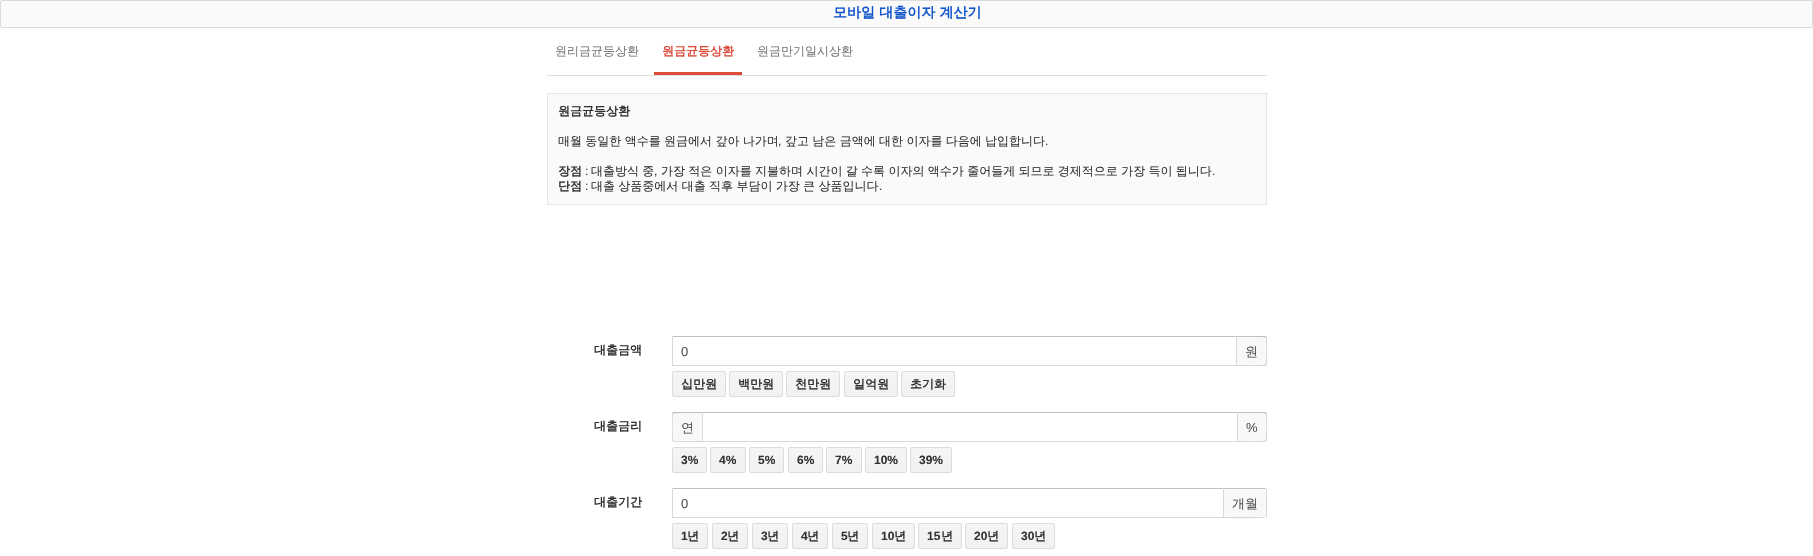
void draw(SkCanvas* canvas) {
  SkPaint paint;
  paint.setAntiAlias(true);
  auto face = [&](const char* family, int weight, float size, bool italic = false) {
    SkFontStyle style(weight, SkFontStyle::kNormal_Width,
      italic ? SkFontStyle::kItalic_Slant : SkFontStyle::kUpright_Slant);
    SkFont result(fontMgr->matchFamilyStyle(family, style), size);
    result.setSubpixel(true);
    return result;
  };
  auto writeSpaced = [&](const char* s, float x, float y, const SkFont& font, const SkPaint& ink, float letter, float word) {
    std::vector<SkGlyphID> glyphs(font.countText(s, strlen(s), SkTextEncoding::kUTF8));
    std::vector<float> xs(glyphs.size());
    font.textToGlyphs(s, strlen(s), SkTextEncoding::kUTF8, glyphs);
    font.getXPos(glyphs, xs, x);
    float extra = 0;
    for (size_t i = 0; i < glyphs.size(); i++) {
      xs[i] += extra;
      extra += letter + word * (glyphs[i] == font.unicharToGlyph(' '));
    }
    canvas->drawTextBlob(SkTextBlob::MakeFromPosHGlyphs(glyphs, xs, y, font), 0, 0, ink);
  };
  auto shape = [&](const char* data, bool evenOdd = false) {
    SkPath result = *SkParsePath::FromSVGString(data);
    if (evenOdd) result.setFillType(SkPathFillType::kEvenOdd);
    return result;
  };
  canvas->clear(0xffffffff);
  paint.setColor(0xfffafafa);
  canvas->drawRoundRect(SkRect::MakeXYWH(0.5f, 0.5f, 1812, 27), 1.5f, 1.5f, paint);
  paint.setStroke(true);
  paint.setStrokeWidth(1);
  paint.setColor(0xffdbdbdb);
  canvas->drawRoundRect(SkRect::MakeXYWH(0.5f, 0.5f, 1812, 27), 1.5f, 1.5f, paint);
  paint.setStroke(false);
  paint.setColor(0xffdddddd);
  canvas->drawRect(SkRect::MakeXYWH(547, 75, 720, 1), paint);
  paint.setColor(0xffdd4b39);
  canvas->drawRect(SkRect::MakeXYWH(654, 72, 88, 3), paint);
  paint.setColor(0xfffafafa);
  canvas->drawRect(SkRect::MakeXYWH(547.5f, 93.5f, 719, 111), paint);
  paint.setStroke(true);
  paint.setColor(0xffe5e5e5);
  canvas->drawRect(SkRect::MakeXYWH(547.5f, 93.5f, 719, 111), paint);
  paint.setStroke(false);
  {
    const struct { float x, y, w, h; SkColor color; } items[] = {
      {672, 336, 565, 1, 0xffc0c0c0},
      {1236, 336, 1, 30, 0xffd9d9d9},
      {672, 365, 565, 1, 0xffd9d9d9},
      {672, 336, 1, 30, 0xffd9d9d9},
    };
    for (auto [x, y, w, h, color] : items) {
      paint.setColor(color);
      canvas->drawRect(SkRect::MakeXYWH(x, y, w, h), paint);
    }
  }
  paint.setColor(0xfff8f8f8);
  canvas->drawPath(shape("M1237 336H1265C1266 336 1267 337 1267 338V364C1267 365 1266 366 1265 366H1237Z"), paint);
  paint.setColor(0xffc0c0c0);
  canvas->drawPath(shape("M1237 336V337C1240 337 1265 336.5 1265.5 337.5L1266.5 336.5L1265 336Z"), paint);
  paint.setColor(0xffd9d9d9);
  canvas->drawPath(shape("M1265.5 364.5C1266.5 364 1266.5 338 1265.5 337.5L1266.5 336.5L1267 338V364L1266.5 365.5Z"), paint);
  canvas->drawPath(shape("M1237 365V366H1265L1266.5 365.5L1265.5 364.5C1265 365.5 1240 365 1237 365Z"), paint);
  canvas->save();
  canvas->clipPath(shape("M674 371H724C725 371 726 372 726 373V395C726 396 725 397 724 397H674C673 397 672 396 672 395V373C672 372 673 371 674 371Z"), true);
  {
    const SkColor colors[] = {0xfff5f5f5, 0xfff1f1f1};
    const float stops[] = {0, 1};
    const SkPoint ends[] = {{699, 372}, {699, 396}};
    paint.setShader(SkGradientShader::MakeLinear(ends, colors, stops, 2, SkTileMode::kClamp));
    paint.setAlpha(255);
  }
  canvas->drawRect(SkRect::MakeXYWH(672, 372, 54, 24), paint);
  canvas->restore();
  paint.setStroke(true);
  paint.setShader(nullptr);
  paint.setColor(0xffdcdcdc);
  canvas->drawRoundRect(SkRect::MakeXYWH(672.5f, 371.5f, 53, 25), 1.5f, 1.5f, paint);
  canvas->save();
  canvas->clipPath(shape("M731 371H781C782 371 783 372 783 373V395C783 396 782 397 781 397H731C730 397 729 396 729 395V373C729 372 730 371 731 371Z"), true);
  paint.setStroke(false);
  {
    const SkColor colors[] = {0xfff5f5f5, 0xfff1f1f1};
    const float stops[] = {0, 1};
    const SkPoint ends[] = {{756, 372}, {756, 396}};
    paint.setShader(SkGradientShader::MakeLinear(ends, colors, stops, 2, SkTileMode::kClamp));
    paint.setAlpha(255);
  }
  canvas->drawRect(SkRect::MakeXYWH(729, 372, 54, 24), paint);
  canvas->restore();
  paint.setStroke(true);
  paint.setShader(nullptr);
  paint.setColor(0xffdcdcdc);
  canvas->drawRoundRect(SkRect::MakeXYWH(729.5f, 371.5f, 53, 25), 1.5f, 1.5f, paint);
  canvas->save();
  canvas->clipPath(shape("M788 371H838C839 371 840 372 840 373V395C840 396 839 397 838 397H788C787 397 786 396 786 395V373C786 372 787 371 788 371Z"), true);
  paint.setStroke(false);
  {
    const SkColor colors[] = {0xfff5f5f5, 0xfff1f1f1};
    const float stops[] = {0, 1};
    const SkPoint ends[] = {{813, 372}, {813, 396}};
    paint.setShader(SkGradientShader::MakeLinear(ends, colors, stops, 2, SkTileMode::kClamp));
    paint.setAlpha(255);
  }
  canvas->drawRect(SkRect::MakeXYWH(786, 372, 54, 24), paint);
  canvas->restore();
  paint.setStroke(true);
  paint.setShader(nullptr);
  paint.setColor(0xffdcdcdc);
  canvas->drawRoundRect(SkRect::MakeXYWH(786.5f, 371.5f, 53, 25), 1.5f, 1.5f, paint);
  canvas->save();
  canvas->clipPath(shape("M846 371H896C897 371 898 372 898 373V395C898 396 897 397 896 397H846C845 397 844 396 844 395V373C844 372 845 371 846 371Z"), true);
  paint.setStroke(false);
  {
    const SkColor colors[] = {0xfff5f5f5, 0xfff1f1f1};
    const float stops[] = {0, 1};
    const SkPoint ends[] = {{871, 372}, {871, 396}};
    paint.setShader(SkGradientShader::MakeLinear(ends, colors, stops, 2, SkTileMode::kClamp));
    paint.setAlpha(255);
  }
  canvas->drawRect(SkRect::MakeXYWH(844, 372, 54, 24), paint);
  canvas->restore();
  paint.setStroke(true);
  paint.setShader(nullptr);
  paint.setColor(0xffdcdcdc);
  canvas->drawRoundRect(SkRect::MakeXYWH(844.5f, 371.5f, 53, 25), 1.5f, 1.5f, paint);
  canvas->save();
  canvas->clipPath(shape("M903 371H953C954 371 955 372 955 373V395C955 396 954 397 953 397H903C902 397 901 396 901 395V373C901 372 902 371 903 371Z"), true);
  paint.setStroke(false);
  {
    const SkColor colors[] = {0xfff5f5f5, 0xfff1f1f1};
    const float stops[] = {0, 1};
    const SkPoint ends[] = {{928, 372}, {928, 396}};
    paint.setShader(SkGradientShader::MakeLinear(ends, colors, stops, 2, SkTileMode::kClamp));
    paint.setAlpha(255);
  }
  canvas->drawRect(SkRect::MakeXYWH(901, 372, 54, 24), paint);
  canvas->restore();
  paint.setStroke(true);
  paint.setShader(nullptr);
  paint.setColor(0xffdcdcdc);
  canvas->drawRoundRect(SkRect::MakeXYWH(901.5f, 371.5f, 53, 25), 1.5f, 1.5f, paint);
  paint.setStroke(false);
  paint.setColor(0xfff8f8f8);
  canvas->drawPath(shape("M674 412H702V442H674C673 442 672 441 672 440V414C672 413 673 412 674 412Z"), paint);
  paint.setColor(0xffc0c0c0);
  canvas->drawPath(shape("M674 412L672.5 412.5L673.5 413.5C674 412.5 699 413 702 413V412Z"), paint);
  paint.setColor(0xffd9d9d9);
  canvas->drawPath(shape("M702 442V441C699 441 674 441.5 673.5 440.5L672.5 441.5L674 442Z"), paint);
  canvas->drawPath(shape("M672 414V440L672.5 441.5L673.5 440.5C672.5 440 672.5 414 673.5 413.5L672.5 412.5Z"), paint);
  {
    const struct { float x, y, w, h; SkColor color; } items[] = {
      {702, 412, 536, 1, 0xffc0c0c0},
      {1237, 412, 1, 30, 0xffd9d9d9},
      {702, 441, 536, 1, 0xffd9d9d9},
      {702, 412, 1, 30, 0xffd9d9d9},
    };
    for (auto [x, y, w, h, color] : items) {
      paint.setColor(color);
      canvas->drawRect(SkRect::MakeXYWH(x, y, w, h), paint);
    }
  }
  paint.setColor(0xfff8f8f8);
  canvas->drawPath(shape("M1238 412H1265C1266 412 1267 413 1267 414V440C1267 441 1266 442 1265 442H1238Z"), paint);
  paint.setColor(0xffc0c0c0);
  canvas->drawPath(shape("M1238 412V413C1241 413 1265 412.5 1265.5 413.5L1266.5 412.5L1265 412Z"), paint);
  paint.setColor(0xffd9d9d9);
  canvas->drawPath(shape("M1265.5 440.5C1266.5 440 1266.5 414 1265.5 413.5L1266.5 412.5L1267 414V440L1266.5 441.5Z"), paint);
  canvas->drawPath(shape("M1238 441V442H1265L1266.5 441.5L1265.5 440.5C1265 441.5 1241 441 1238 441Z"), paint);
  canvas->save();
  canvas->clipPath(shape("M674 447H705C706 447 707 448 707 449V471C707 472 706 473 705 473H674C673 473 672 472 672 471V449C672 448 673 447 674 447Z"), true);
  {
    const SkColor colors[] = {0xfff5f5f5, 0xfff1f1f1};
    const float stops[] = {0, 1};
    const SkPoint ends[] = {{690, 448}, {690, 472}};
    paint.setShader(SkGradientShader::MakeLinear(ends, colors, stops, 2, SkTileMode::kClamp));
    paint.setAlpha(255);
  }
  canvas->drawRect(SkRect::MakeXYWH(672, 448, 35, 24), paint);
  canvas->restore();
  paint.setStroke(true);
  paint.setShader(nullptr);
  paint.setColor(0xffdcdcdc);
  canvas->drawRoundRect(SkRect::MakeXYWH(672.5f, 447.5f, 34, 25), 1.5f, 1.5f, paint);
  canvas->save();
  canvas->clipPath(shape("M712 447H744C745 447 746 448 746 449V471C746 472 745 473 744 473H712C711 473 710 472 710 471V449C710 448 711 447 712 447Z"), true);
  paint.setStroke(false);
  {
    const SkColor colors[] = {0xfff5f5f5, 0xfff1f1f1};
    const float stops[] = {0, 1};
    const SkPoint ends[] = {{728, 448}, {728, 472}};
    paint.setShader(SkGradientShader::MakeLinear(ends, colors, stops, 2, SkTileMode::kClamp));
    paint.setAlpha(255);
  }
  canvas->drawRect(SkRect::MakeXYWH(710, 448, 36, 24), paint);
  canvas->restore();
  paint.setStroke(true);
  paint.setShader(nullptr);
  paint.setColor(0xffdcdcdc);
  canvas->drawRoundRect(SkRect::MakeXYWH(710.5f, 447.5f, 35, 25), 1.5f, 1.5f, paint);
  canvas->save();
  canvas->clipPath(shape("M751 447H782C783 447 784 448 784 449V471C784 472 783 473 782 473H751C750 473 749 472 749 471V449C749 448 750 447 751 447Z"), true);
  paint.setStroke(false);
  {
    const SkColor colors[] = {0xfff5f5f5, 0xfff1f1f1};
    const float stops[] = {0, 1};
    const SkPoint ends[] = {{767, 448}, {767, 472}};
    paint.setShader(SkGradientShader::MakeLinear(ends, colors, stops, 2, SkTileMode::kClamp));
    paint.setAlpha(255);
  }
  canvas->drawRect(SkRect::MakeXYWH(749, 448, 35, 24), paint);
  canvas->restore();
  paint.setStroke(true);
  paint.setShader(nullptr);
  paint.setColor(0xffdcdcdc);
  canvas->drawRoundRect(SkRect::MakeXYWH(749.5f, 447.5f, 34, 25), 1.5f, 1.5f, paint);
  canvas->save();
  canvas->clipPath(shape("M790 447H821C822 447 823 448 823 449V471C823 472 822 473 821 473H790C789 473 788 472 788 471V449C788 448 789 447 790 447Z"), true);
  paint.setStroke(false);
  {
    const SkColor colors[] = {0xfff5f5f5, 0xfff1f1f1};
    const float stops[] = {0, 1};
    const SkPoint ends[] = {{806, 448}, {806, 472}};
    paint.setShader(SkGradientShader::MakeLinear(ends, colors, stops, 2, SkTileMode::kClamp));
    paint.setAlpha(255);
  }
  canvas->drawRect(SkRect::MakeXYWH(788, 448, 35, 24), paint);
  canvas->restore();
  paint.setStroke(true);
  paint.setShader(nullptr);
  paint.setColor(0xffdcdcdc);
  canvas->drawRoundRect(SkRect::MakeXYWH(788.5f, 447.5f, 34, 25), 1.5f, 1.5f, paint);
  canvas->save();
  canvas->clipPath(shape("M828 447H860C861 447 862 448 862 449V471C862 472 861 473 860 473H828C827 473 826 472 826 471V449C826 448 827 447 828 447Z"), true);
  paint.setStroke(false);
  {
    const SkColor colors[] = {0xfff5f5f5, 0xfff1f1f1};
    const float stops[] = {0, 1};
    const SkPoint ends[] = {{844, 448}, {844, 472}};
    paint.setShader(SkGradientShader::MakeLinear(ends, colors, stops, 2, SkTileMode::kClamp));
    paint.setAlpha(255);
  }
  canvas->drawRect(SkRect::MakeXYWH(826, 448, 36, 24), paint);
  canvas->restore();
  paint.setStroke(true);
  paint.setShader(nullptr);
  paint.setColor(0xffdcdcdc);
  canvas->drawRoundRect(SkRect::MakeXYWH(826.5f, 447.5f, 35, 25), 1.5f, 1.5f, paint);
  canvas->save();
  canvas->clipPath(shape("M867 447H905C906 447 907 448 907 449V471C907 472 906 473 905 473H867C866 473 865 472 865 471V449C865 448 866 447 867 447Z"), true);
  paint.setStroke(false);
  {
    const SkColor colors[] = {0xfff5f5f5, 0xfff1f1f1};
    const float stops[] = {0, 1};
    const SkPoint ends[] = {{886, 448}, {886, 472}};
    paint.setShader(SkGradientShader::MakeLinear(ends, colors, stops, 2, SkTileMode::kClamp));
    paint.setAlpha(255);
  }
  canvas->drawRect(SkRect::MakeXYWH(865, 448, 42, 24), paint);
  canvas->restore();
  paint.setStroke(true);
  paint.setShader(nullptr);
  paint.setColor(0xffdcdcdc);
  canvas->drawRoundRect(SkRect::MakeXYWH(865.5f, 447.5f, 41, 25), 1.5f, 1.5f, paint);
  canvas->save();
  canvas->clipPath(shape("M912 447H950C951 447 952 448 952 449V471C952 472 951 473 950 473H912C911 473 910 472 910 471V449C910 448 911 447 912 447Z"), true);
  paint.setStroke(false);
  {
    const SkColor colors[] = {0xfff5f5f5, 0xfff1f1f1};
    const float stops[] = {0, 1};
    const SkPoint ends[] = {{931, 448}, {931, 472}};
    paint.setShader(SkGradientShader::MakeLinear(ends, colors, stops, 2, SkTileMode::kClamp));
    paint.setAlpha(255);
  }
  canvas->drawRect(SkRect::MakeXYWH(910, 448, 42, 24), paint);
  canvas->restore();
  paint.setStroke(true);
  paint.setShader(nullptr);
  paint.setColor(0xffdcdcdc);
  canvas->drawRoundRect(SkRect::MakeXYWH(910.5f, 447.5f, 41, 25), 1.5f, 1.5f, paint);
  paint.setStroke(false);
  {
    const struct { float x, y, w, h; SkColor color; } items[] = {
      {672, 488, 552, 1, 0xffc0c0c0},
      {1223, 488, 1, 30, 0xffd9d9d9},
      {672, 517, 552, 1, 0xffd9d9d9},
      {672, 488, 1, 30, 0xffd9d9d9},
    };
    for (auto [x, y, w, h, color] : items) {
      paint.setColor(color);
      canvas->drawRect(SkRect::MakeXYWH(x, y, w, h), paint);
    }
  }
  paint.setColor(0xfff8f8f8);
  canvas->drawPath(shape("M1224 488H1265C1266 488 1267 489 1267 490V516C1267 517 1266 518 1265 518H1224Z"), paint);
  paint.setColor(0xffc0c0c0);
  canvas->drawPath(shape("M1224 488V489H1266L1265 488Z"), paint);
  paint.setColor(0xffd9d9d9);
  canvas->drawPath(shape("M1266 517V489L1266.5 488.5L1267 490V516L1266.5 517.5ZM1224 517V518C1229 518 1265 519 1266 517Z"), paint);
  canvas->save();
  canvas->clipPath(shape("M674 523H706C707 523 708 524 708 525V547C708 548 707 549 706 549H674C673 549 672 548 672 547V525C672 524 673 523 674 523Z"), true);
  {
    const SkColor colors[] = {0xfff5f5f5, 0xfff1f1f1};
    const float stops[] = {0, 1};
    const SkPoint ends[] = {{690, 524}, {690, 548}};
    paint.setShader(SkGradientShader::MakeLinear(ends, colors, stops, 2, SkTileMode::kClamp));
    paint.setAlpha(255);
  }
  canvas->drawRect(SkRect::MakeXYWH(672, 524, 36, 24), paint);
  canvas->restore();
  paint.setStroke(true);
  paint.setShader(nullptr);
  paint.setColor(0xffdcdcdc);
  canvas->drawRoundRect(SkRect::MakeXYWH(672.5f, 523.5f, 35, 25), 1.5f, 1.5f, paint);
  canvas->save();
  canvas->clipPath(shape("M714 523H746C747 523 748 524 748 525V547C748 548 747 549 746 549H714C713 549 712 548 712 547V525C712 524 713 523 714 523Z"), true);
  paint.setStroke(false);
  {
    const SkColor colors[] = {0xfff5f5f5, 0xfff1f1f1};
    const float stops[] = {0, 1};
    const SkPoint ends[] = {{730, 524}, {730, 548}};
    paint.setShader(SkGradientShader::MakeLinear(ends, colors, stops, 2, SkTileMode::kClamp));
    paint.setAlpha(255);
  }
  canvas->drawRect(SkRect::MakeXYWH(712, 524, 36, 24), paint);
  canvas->restore();
  paint.setStroke(true);
  paint.setShader(nullptr);
  paint.setColor(0xffdcdcdc);
  canvas->drawRoundRect(SkRect::MakeXYWH(712.5f, 523.5f, 35, 25), 1.5f, 1.5f, paint);
  canvas->save();
  canvas->clipPath(shape("M754 523H786C787 523 788 524 788 525V547C788 548 787 549 786 549H754C753 549 752 548 752 547V525C752 524 753 523 754 523Z"), true);
  paint.setStroke(false);
  {
    const SkColor colors[] = {0xfff5f5f5, 0xfff1f1f1};
    const float stops[] = {0, 1};
    const SkPoint ends[] = {{770, 524}, {770, 548}};
    paint.setShader(SkGradientShader::MakeLinear(ends, colors, stops, 2, SkTileMode::kClamp));
    paint.setAlpha(255);
  }
  canvas->drawRect(SkRect::MakeXYWH(752, 524, 36, 24), paint);
  canvas->restore();
  paint.setStroke(true);
  paint.setShader(nullptr);
  paint.setColor(0xffdcdcdc);
  canvas->drawRoundRect(SkRect::MakeXYWH(752.5f, 523.5f, 35, 25), 1.5f, 1.5f, paint);
  canvas->save();
  canvas->clipPath(shape("M794 523H826C827 523 828 524 828 525V547C828 548 827 549 826 549H794C793 549 792 548 792 547V525C792 524 793 523 794 523Z"), true);
  paint.setStroke(false);
  {
    const SkColor colors[] = {0xfff5f5f5, 0xfff1f1f1};
    const float stops[] = {0, 1};
    const SkPoint ends[] = {{810, 524}, {810, 548}};
    paint.setShader(SkGradientShader::MakeLinear(ends, colors, stops, 2, SkTileMode::kClamp));
    paint.setAlpha(255);
  }
  canvas->drawRect(SkRect::MakeXYWH(792, 524, 36, 24), paint);
  canvas->restore();
  paint.setStroke(true);
  paint.setShader(nullptr);
  paint.setColor(0xffdcdcdc);
  canvas->drawRoundRect(SkRect::MakeXYWH(792.5f, 523.5f, 35, 25), 1.5f, 1.5f, paint);
  canvas->save();
  canvas->clipPath(shape("M834 523H866C867 523 868 524 868 525V547C868 548 867 549 866 549H834C833 549 832 548 832 547V525C832 524 833 523 834 523Z"), true);
  paint.setStroke(false);
  {
    const SkColor colors[] = {0xfff5f5f5, 0xfff1f1f1};
    const float stops[] = {0, 1};
    const SkPoint ends[] = {{850, 524}, {850, 548}};
    paint.setShader(SkGradientShader::MakeLinear(ends, colors, stops, 2, SkTileMode::kClamp));
    paint.setAlpha(255);
  }
  canvas->drawRect(SkRect::MakeXYWH(832, 524, 36, 24), paint);
  canvas->restore();
  paint.setStroke(true);
  paint.setShader(nullptr);
  paint.setColor(0xffdcdcdc);
  canvas->drawRoundRect(SkRect::MakeXYWH(832.5f, 523.5f, 35, 25), 1.5f, 1.5f, paint);
  canvas->save();
  canvas->clipPath(shape("M874 523H913C914 523 915 524 915 525V547C915 548 914 549 913 549H874C873 549 872 548 872 547V525C872 524 873 523 874 523Z"), true);
  paint.setStroke(false);
  {
    const SkColor colors[] = {0xfff5f5f5, 0xfff1f1f1};
    const float stops[] = {0, 1};
    const SkPoint ends[] = {{894, 524}, {894, 548}};
    paint.setShader(SkGradientShader::MakeLinear(ends, colors, stops, 2, SkTileMode::kClamp));
    paint.setAlpha(255);
  }
  canvas->drawRect(SkRect::MakeXYWH(872, 524, 43, 24), paint);
  canvas->restore();
  paint.setStroke(true);
  paint.setShader(nullptr);
  paint.setColor(0xffdcdcdc);
  canvas->drawRoundRect(SkRect::MakeXYWH(872.5f, 523.5f, 42, 25), 1.5f, 1.5f, paint);
  canvas->save();
  canvas->clipPath(shape("M920 523H960C961 523 962 524 962 525V547C962 548 961 549 960 549H920C919 549 918 548 918 547V525C918 524 919 523 920 523Z"), true);
  paint.setStroke(false);
  {
    const SkColor colors[] = {0xfff5f5f5, 0xfff1f1f1};
    const float stops[] = {0, 1};
    const SkPoint ends[] = {{940, 524}, {940, 548}};
    paint.setShader(SkGradientShader::MakeLinear(ends, colors, stops, 2, SkTileMode::kClamp));
    paint.setAlpha(255);
  }
  canvas->drawRect(SkRect::MakeXYWH(918, 524, 44, 24), paint);
  canvas->restore();
  paint.setStroke(true);
  paint.setShader(nullptr);
  paint.setColor(0xffdcdcdc);
  canvas->drawRoundRect(SkRect::MakeXYWH(918.5f, 523.5f, 43, 25), 1.5f, 1.5f, paint);
  canvas->save();
  canvas->clipPath(shape("M967 523H1006C1007 523 1008 524 1008 525V547C1008 548 1007 549 1006 549H967C966 549 965 548 965 547V525C965 524 966 523 967 523Z"), true);
  paint.setStroke(false);
  {
    const SkColor colors[] = {0xfff5f5f5, 0xfff1f1f1};
    const float stops[] = {0, 1};
    const SkPoint ends[] = {{987, 524}, {987, 548}};
    paint.setShader(SkGradientShader::MakeLinear(ends, colors, stops, 2, SkTileMode::kClamp));
    paint.setAlpha(255);
  }
  canvas->drawRect(SkRect::MakeXYWH(965, 524, 43, 24), paint);
  canvas->restore();
  paint.setStroke(true);
  paint.setShader(nullptr);
  paint.setColor(0xffdcdcdc);
  canvas->drawRoundRect(SkRect::MakeXYWH(965.5f, 523.5f, 42, 25), 1.5f, 1.5f, paint);
  canvas->save();
  canvas->clipPath(shape("M1014 523H1053C1054 523 1055 524 1055 525V547C1055 548 1054 549 1053 549H1014C1013 549 1012 548 1012 547V525C1012 524 1013 523 1014 523Z"), true);
  paint.setStroke(false);
  {
    const SkColor colors[] = {0xfff5f5f5, 0xfff1f1f1};
    const float stops[] = {0, 1};
    const SkPoint ends[] = {{1034, 524}, {1034, 548}};
    paint.setShader(SkGradientShader::MakeLinear(ends, colors, stops, 2, SkTileMode::kClamp));
    paint.setAlpha(255);
  }
  canvas->drawRect(SkRect::MakeXYWH(1012, 524, 43, 24), paint);
  canvas->restore();
  paint.setStroke(true);
  paint.setShader(nullptr);
  paint.setColor(0xffdcdcdc);
  canvas->drawRoundRect(SkRect::MakeXYWH(1012.5f, 523.5f, 42, 25), 1.5f, 1.5f, paint);
  auto f0 = face("WenQuanYi Zen Hei", 700, 14);
  paint.setStroke(false);
  paint.setColor(0xff1155cc);
  canvas->drawString("모바일 대출이자 계산기", 833, 17, f0, paint);
  auto f1 = face("WenQuanYi Zen Hei", 500, 12);
  paint.setColor(0xff777777);
  canvas->drawString("원리금균등상환", 555, 55, f1, paint);
  auto f2 = face("WenQuanYi Zen Hei", 700, 12);
  paint.setColor(0xffdd4b39);
  canvas->drawString("원금균등상환", 662, 55, f2, paint);
  paint.setColor(0xff777777);
  canvas->drawString("원금만기일시상환", 757, 55, f1, paint);
  paint.setColor(0xff333333);
  canvas->drawString("원금균등상환", 558, 115, f2, paint);
  writeSpaced("매월 동일한 액수를 원금에서 갚아 나가며", 558, 145, f1, paint, 0, -0.25f);
  auto f3 = face("Liberation Sans", 400, 12);
  canvas->drawString(",", 778, 145, f3, paint);
  writeSpaced("갚고 남은 금액에 대한 이자를 다음에 납입합니다", 785, 145, f1, paint, 0, -0.25f);
  canvas->drawString(".", 1045, 145, f3, paint);
  canvas->drawString("장점", 558, 175, f2, paint);
  canvas->drawString(":", 585, 175, f3, paint);
  writeSpaced("대출방식 중", 591, 175, f1, paint, 0, -0.25f);
  canvas->drawString(",", 654, 175, f3, paint);
  writeSpaced("가장 적은 이자를 지불하며 시간이 갈 수록 이자의 액수가 줄어들게 되므로 경제적으로 가장 득이 됩니다", 661, 175, f1, paint, 0, -0.25f);
  canvas->drawString(".", 1212, 175, f3, paint);
  canvas->drawString("단점", 558, 190, f2, paint);
  canvas->drawString(":", 585, 190, f3, paint);
  writeSpaced("대출 상품중에서 대출 직후 부담이 가장 큰 상품입니다", 591, 190, f1, paint, 0, -0.25f);
  canvas->drawString(".", 879, 190, f3, paint);
  canvas->drawString("대출금액", 594, 354, f2, paint);
  auto f4 = face("Liberation Sans", 400, 13);
  paint.setColor(0xff555555);
  canvas->drawString("0", 681, 356, f4, paint);
  auto f5 = face("WenQuanYi Zen Hei", 500, 13);
  canvas->drawString("원", 1245, 356, f5, paint);
  paint.setColor(0xff333333);
  {
    const struct { const char* s; float x, y; } items[] = {
      {"십만원", 681, 388},
      {"백만원", 738, 388},
      {"천만원", 795, 388},
      {"일억원", 853, 388},
      {"초기화", 910, 388},
      {"대출금리", 594, 430},
    };
    for (auto [s, x, y] : items) {
      canvas->drawString(s, x, y, f2, paint);
    }
  }
  paint.setColor(0xff555555);
  canvas->drawString("연", 681, 432, f5, paint);
  canvas->drawString("%", 1246, 432, f4, paint);
  auto f6 = face("Liberation Sans", 700, 12);
  paint.setColor(0xff333333);
  {
    const struct { const char* s; float x, y; } items[] = {
      {"3%", 681, 464},
      {"4%", 719, 464},
      {"5%", 758, 464},
      {"6%", 797, 464},
      {"7%", 835, 464},
      {"10%", 874, 464},
      {"39%", 919, 464},
    };
    for (auto [s, x, y] : items) {
      canvas->drawString(s, x, y, f6, paint);
    }
  }
  canvas->drawString("대출기간", 594, 506, f2, paint);
  paint.setColor(0xff555555);
  canvas->drawString("0", 681, 508, f4, paint);
  canvas->drawString("개월", 1232, 508, f5, paint);
  paint.setColor(0xff333333);
  canvas->drawString("1", 681, 540, f6, paint);
  canvas->drawString("년", 687, 540, f2, paint);
  canvas->drawString("2", 721, 540, f6, paint);
  canvas->drawString("년", 727, 540, f2, paint);
  canvas->drawString("3", 761, 540, f6, paint);
  canvas->drawString("년", 767, 540, f2, paint);
  canvas->drawString("4", 801, 540, f6, paint);
  canvas->drawString("년", 807, 540, f2, paint);
  canvas->drawString("5", 841, 540, f6, paint);
  canvas->drawString("년", 847, 540, f2, paint);
  canvas->drawString("10", 881, 540, f6, paint);
  canvas->drawString("년", 894, 540, f2, paint);
  canvas->drawString("15", 927, 540, f6, paint);
  canvas->drawString("년", 941, 540, f2, paint);
  canvas->drawString("20", 974, 540, f6, paint);
  canvas->drawString("년", 987, 540, f2, paint);
  canvas->drawString("30", 1021, 540, f6, paint);
  canvas->drawString("년", 1034, 540, f2, paint);
}
